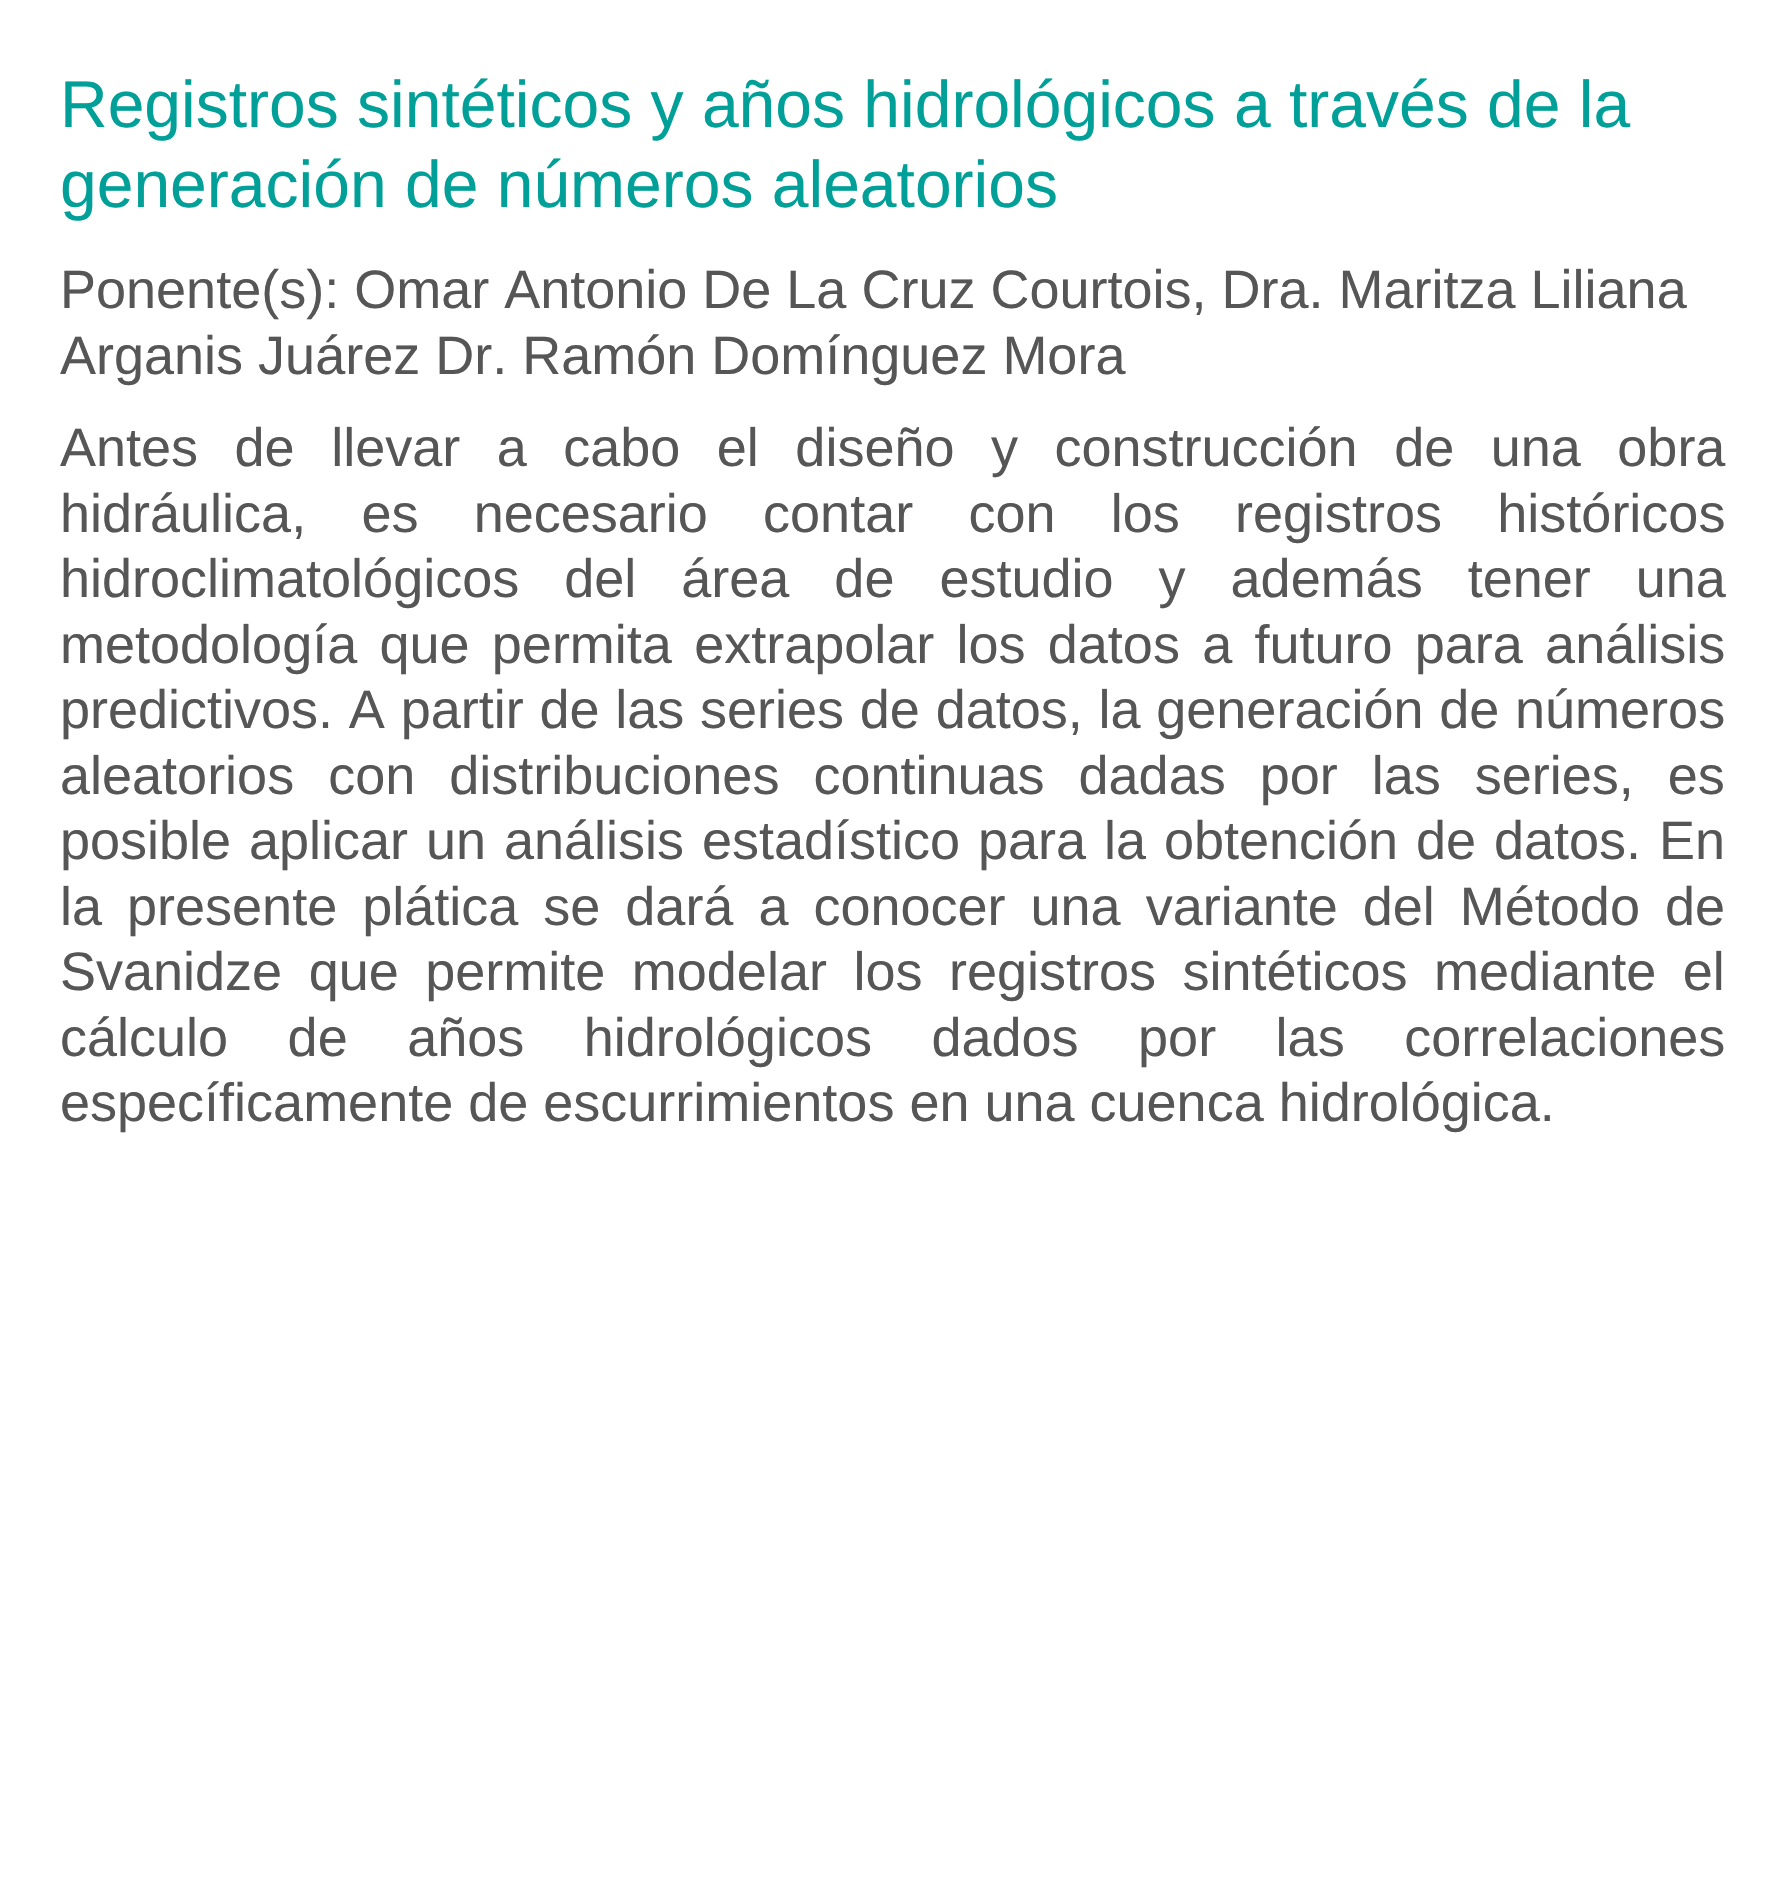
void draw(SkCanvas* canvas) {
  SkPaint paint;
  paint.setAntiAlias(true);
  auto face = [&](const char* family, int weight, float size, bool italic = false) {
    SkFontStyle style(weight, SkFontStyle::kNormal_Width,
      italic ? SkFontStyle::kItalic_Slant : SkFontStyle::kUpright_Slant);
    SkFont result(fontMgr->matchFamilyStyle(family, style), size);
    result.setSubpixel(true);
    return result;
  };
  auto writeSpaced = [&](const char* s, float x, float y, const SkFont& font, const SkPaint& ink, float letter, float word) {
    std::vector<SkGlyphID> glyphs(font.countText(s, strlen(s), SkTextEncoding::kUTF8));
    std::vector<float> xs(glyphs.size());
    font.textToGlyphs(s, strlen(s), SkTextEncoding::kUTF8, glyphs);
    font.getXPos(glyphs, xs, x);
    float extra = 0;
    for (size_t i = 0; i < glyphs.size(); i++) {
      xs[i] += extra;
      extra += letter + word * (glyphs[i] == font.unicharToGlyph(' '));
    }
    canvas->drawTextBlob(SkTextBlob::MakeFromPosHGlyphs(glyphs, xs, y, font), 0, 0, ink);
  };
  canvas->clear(0xffffffff);
  auto f0 = face("Liberation Sans", 400, 66);
  paint.setColor(0xff00a099);
  canvas->drawString("Registros sintéticos y años hidrológicos a través de la", 60, 127, f0, paint);
  canvas->drawString("generación de números aleatorios", 60, 207, f0, paint);
  auto f1 = face("Liberation Sans", 400, 54);
  paint.setColor(0xff565656);
  canvas->drawString("Ponente(s): Omar Antonio De La Cruz Courtois, Dra. Maritza Liliana", 60, 308, f1, paint);
  canvas->drawString("Arganis Juárez Dr. Ramón Domínguez Mora", 60, 374, f1, paint);
  writeSpaced("Antes de llevar a cabo el diseño y construcción de una obra", 60, 466, f1, paint, 0, 21.5f);
  writeSpaced("hidráulica, es necesario contar con los registros históricos", 60, 532, f1, paint, 0, 40.25f);
  writeSpaced("hidroclimatológicos del área de estudio y además tener una", 60, 597, f1, paint, 0, 30);
  writeSpaced("metodología que permita extrapolar los datos a futuro para análisis", 60, 663, f1, paint, 0, 7.25f);
  writeSpaced("predictivos. A partir de las series de datos, la generación de números", 60, 728, f1, paint, 0, 0.75f);
  writeSpaced("aleatorios con distribuciones continuas dadas por las series, es", 60, 794, f1, paint, 0, 19);
  writeSpaced("posible aplicar un análisis estadístico para la obtención de datos. En", 60, 859, f1, paint, 0, 2.9f);
  writeSpaced("la presente plática se dará a conocer una variante del Método de", 60, 925, f1, paint, 0, 10);
  writeSpaced("Svanidze que permite modelar los registros sintéticos mediante el", 60, 990, f1, paint, 0, 11.5f);
  writeSpaced("cálculo de años hidrológicos dados por las correlaciones", 60, 1056, f1, paint, 0, 44.5f);
  canvas->drawString("específicamente de escurrimientos en una cuenca hidrológica.", 60, 1121, f1, paint);
}
